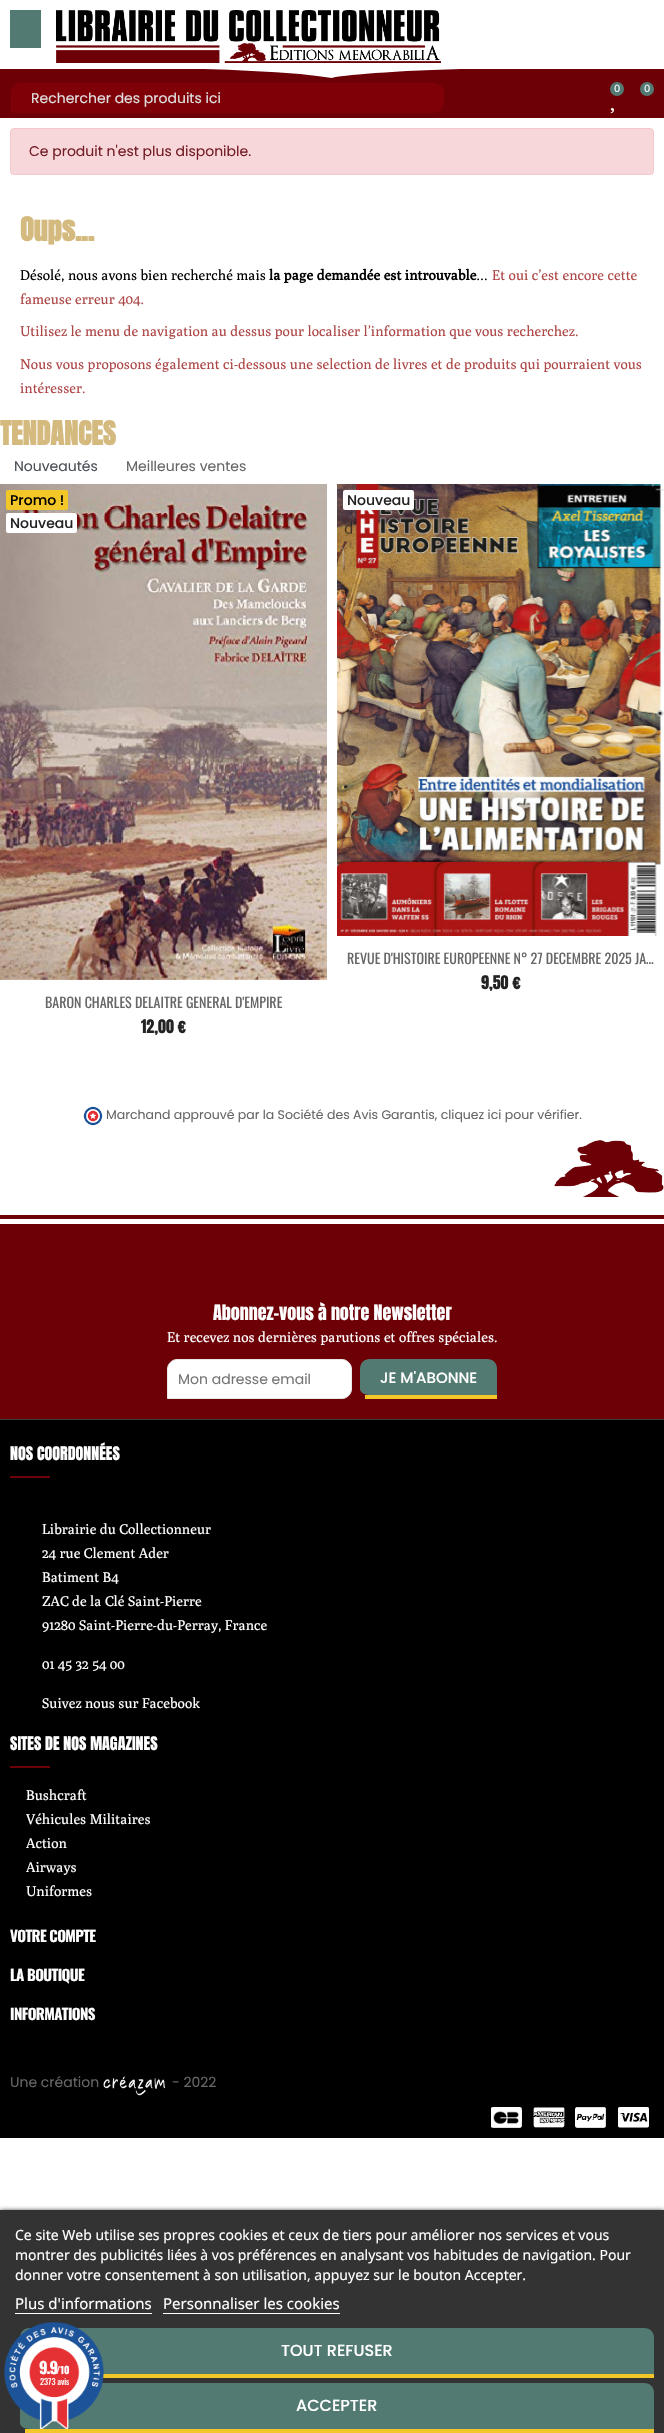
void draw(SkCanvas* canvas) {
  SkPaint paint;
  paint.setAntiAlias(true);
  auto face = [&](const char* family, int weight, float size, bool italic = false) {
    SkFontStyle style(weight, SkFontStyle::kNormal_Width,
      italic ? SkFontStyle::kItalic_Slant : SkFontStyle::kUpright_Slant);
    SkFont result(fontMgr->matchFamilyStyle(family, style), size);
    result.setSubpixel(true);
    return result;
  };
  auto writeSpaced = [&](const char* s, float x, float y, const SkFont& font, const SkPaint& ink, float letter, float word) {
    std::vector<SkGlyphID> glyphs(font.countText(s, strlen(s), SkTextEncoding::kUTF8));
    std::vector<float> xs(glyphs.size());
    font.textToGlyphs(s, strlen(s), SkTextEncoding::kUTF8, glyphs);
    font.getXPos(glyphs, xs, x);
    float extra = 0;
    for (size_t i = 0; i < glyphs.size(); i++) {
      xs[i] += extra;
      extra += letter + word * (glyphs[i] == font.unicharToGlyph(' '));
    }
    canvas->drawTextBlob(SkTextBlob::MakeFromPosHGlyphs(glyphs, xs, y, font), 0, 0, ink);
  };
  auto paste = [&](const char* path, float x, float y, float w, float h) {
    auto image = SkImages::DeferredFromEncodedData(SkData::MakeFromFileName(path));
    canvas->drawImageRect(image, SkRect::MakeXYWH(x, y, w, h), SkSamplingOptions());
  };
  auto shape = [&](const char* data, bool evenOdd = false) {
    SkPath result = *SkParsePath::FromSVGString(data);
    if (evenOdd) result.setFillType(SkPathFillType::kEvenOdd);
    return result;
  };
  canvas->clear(0xffffffff);
  paint.setColor(0xff527a72);
  canvas->drawRect(SkRect::MakeXYWH(10, 10, 31, 38), paint);
  paste("img/1.png", 56, 10, 385, 53);
  canvas->save();
  canvas->clipRect(SkRect::MakeXYWH(0, 69, 664, 10));
  paint.setColor(0xff6c0006);
  canvas->drawPath(shape("M536 68C411 68 333 76 332 78L317 76L300 74C200 66 100 68-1 68V78H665V68Z"), paint);
  canvas->restore();
  canvas->drawRect(SkRect::MakeXYWH(0, 78, 664, 40), paint);
  paint.setColor(0xff527a72);
  canvas->drawCircle(617, 89, 7, paint);
  paste("img/2.png", 610, 108, 4, 6);
  canvas->drawCircle(647, 89, 7, paint);
  paint.setColor(0xff7f0007);
  canvas->drawPath(shape("M21 83H434C439.5 83 444 87.5 444 93V103C444 108.5 439.5 113 434 113H11V93C11 87.5 15.5 83 21 83Z"), paint);
  paint.setColor(0xfff8d7da);
  canvas->drawRoundRect(SkRect::MakeXYWH(10.5f, 128.5f, 643, 46), 3.5f, 3.5f, paint);
  paint.setStroke(true);
  paint.setStrokeWidth(1);
  paint.setColor(0xfff5c6cb);
  canvas->drawRoundRect(SkRect::MakeXYWH(10.5f, 128.5f, 643, 46), 3.5f, 3.5f, paint);
  paste("img/3.png", 0, 484, 327, 496);
  paint.setStroke(false);
  paint.setColor(0xfff4c728);
  canvas->drawRoundRect(SkRect::MakeXYWH(6, 490, 62, 20), 2, 2, paint);
  paint.setColor(0xffffffff);
  canvas->drawRoundRect(SkRect::MakeXYWH(6, 513, 71, 20), 2, 2, paint);
  paste("img/4.png", 337, 484, 327, 452);
  canvas->drawRoundRect(SkRect::MakeXYWH(343, 490, 71, 20), 2, 2, paint);
  paste("img/5.png", 83, 1106, 20, 20);
  paint.setColor(0xff000000);
  paint.setMaskFilter(SkMaskFilter::MakeBlur(kNormal_SkBlurStyle, 2.5f));
  canvas->drawRect(SkRect::MakeXYWH(0, 2211, 664, 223), paint);
  paint.setMaskFilter(nullptr);
  {
    const struct { float x, y, w, h; SkColor color; } items[] = {
      {0, 2210, 664, 223, 0xff333333},
      {15, 2313, 137, 1, 0xffffffff},
      {163, 2313, 177, 1, 0xffffffff},
    };
    for (auto [x, y, w, h, color] : items) {
      paint.setColor(color);
      canvas->drawRect(SkRect::MakeXYWH(x, y, w, h), paint);
    }
  }
  paint.setColor(0xff527a72);
  canvas->drawPath(shape("M30 2328H644C650 2328 654 2332 654 2338V2374H30C24 2374 20 2371 20 2368V2338C20 2332 24 2328 30 2328Z"), paint);
  paint.setColor(0xfff4c728);
  canvas->drawRect(SkRect::MakeXYWH(103, 2374, 551, 4), paint);
  paint.setColor(0xff527a72);
  canvas->drawPath(shape("M30 2383H644C650 2383 654 2387 654 2393V2429H30C24 2429 20 2426 20 2423V2393C20 2387 24 2383 30 2383Z"), paint);
  paint.setColor(0xfff4c728);
  canvas->drawRect(SkRect::MakeXYWH(25, 2429, 629, 4), paint);
  paste("img/6.png", 554, 1140, 110, 57);
  {
    const struct { float x, y, w, h; SkColor color; } items[] = {
      {0, 1215, 664, 4, 0xff6c0006},
      {0, 1224, 664, 195, 0xff6c0006},
      {0, 1419, 664, 1, 0xff393939},
    };
    for (auto [x, y, w, h, color] : items) {
      paint.setColor(color);
      canvas->drawRect(SkRect::MakeXYWH(x, y, w, h), paint);
    }
  }
  paint.setColor(0xffffffff);
  canvas->drawPath(shape("M177 1359.5H342C347 1359.5 351.5 1364 351.5 1369V1389C351.5 1394 347 1398.5 342 1398.5H167.5V1369C167.5 1364 172 1359.5 177 1359.5Z"), paint);
  paint.setStroke(true);
  paint.setColor(0xffe8e8e8);
  canvas->drawPath(shape("M177 1359.5H342C347 1359.5 351.5 1364 351.5 1369V1389C351.5 1394 347 1398.5 342 1398.5H167.5V1369C167.5 1364 172 1359.5 177 1359.5Z"), paint);
  paint.setStroke(false);
  paint.setColor(0xff527a72);
  canvas->drawPath(shape("M370 1359H487C493 1359 497 1363 497 1369V1395H370C364 1395 360 1392 360 1389V1369C360 1363 364 1359 370 1359Z"), paint);
  {
    const struct { float x, y, w, h; SkColor color; } items[] = {
      {365, 1395, 132, 4, 0xfff4c728},
      {0, 1420, 664, 718, 0xff000000},
      {10, 1476, 40, 2, 0xff6c0006},
      {10, 1766, 40, 2, 0xff6c0006},
    };
    for (auto [x, y, w, h, color] : items) {
      paint.setColor(color);
      canvas->drawRect(SkRect::MakeXYWH(x, y, w, h), paint);
    }
  }
  paste("img/7.png", 103, 2076, 63, 20);
  paste("img/8.png", 491, 2107, 158, 21);
  paste("img/9.png", 4, 2322, 100, 107);
  auto f0 = face("Poppins", 400, 10);
  paint.setColor(0xffffffff);
  canvas->drawString("0", 614, 92, f0, paint);
  canvas->drawString("0", 644, 92, f0, paint);
  auto f1 = face("Poppins", 400, 14);
  paint.setColor(0xffe0e0e0);
  canvas->drawString("Rechercher des produits ici", 31, 103, f1, paint);
  paint.setColor(0xff721c24);
  canvas->drawString("Ce produit n'est plus disponible.", 29, 156, f1, paint);
  auto f2 = face("Anton", 700, 28);
  paint.setColor(0xffd5ba7f);
  canvas->drawString("Oups...", 20, 241, f2, paint);
  auto f3 = face("Poly", 400, 14);
  paint.setColor(0xff000000);
  canvas->drawString("Désolé, nous avons bien recherché mais", 20, 280, f3, paint);
  auto f4 = face("Poly", 700, 14);
  canvas->drawString("la page demandée est introuvable", 269, 280, f4, paint);
  canvas->drawString("…", 476, 280, f3, paint);
  paint.setColor(0xffae4848);
  {
    const struct { const char* s; float x, y; } items[] = {
      {"Et oui c’est encore cette", 492, 280},
      {"fameuse erreur 404.", 20, 304},
      {"Utilisez le menu de navigation au dessus pour localiser l’information que vous recherchez.", 20, 336},
      {"Nous vous proposons également ci-dessous une selection de livres et de produits qui pourraient vous", 20, 369},
      {"intéresser.", 20, 393},
    };
    for (auto [s, x, y] : items) {
      canvas->drawString(s, x, y, f3, paint);
    }
  }
  paint.setColor(0xffd5ba7f);
  canvas->drawString("TENDANCES", 0, 445, f2, paint);
  paint.setColor(0xff495057);
  canvas->drawString("Nouveautés", 14, 471, f1, paint);
  paint.setColor(0xff666666);
  canvas->drawString("Meilleures ventes", 126, 471, f1, paint);
  auto f5 = face("Poppins", 500, 14);
  paint.setColor(0xff000000);
  canvas->drawString("Promo !", 10, 505, f5, paint);
  paint.setColor(0xff232323);
  canvas->drawString("Nouveau", 10, 528, f5, paint);
  auto f6 = face("Oswald", 400, 14);
  paint.setColor(0xff666666);
  canvas->drawString("BARON CHARLES DELAITRE GENERAL D'EMPIRE", 45, 1008, f6, paint);
  auto f7 = face("Anton", 400, 16);
  paint.setColor(0xff232323);
  canvas->drawString("12,00 €", 141, 1033, f7, paint);
  canvas->drawString("Nouveau", 347, 505, f5, paint);
  paint.setColor(0xff666666);
  canvas->drawString("REVUE D'HISTOIRE EUROPEENNE N° 27 DECEMBRE 2025 JA…", 347, 964, f6, paint);
  paint.setColor(0xff232323);
  canvas->drawString("9,50 €", 481, 989, f7, paint);
  auto f8 = face("Poppins", 400, 12.5f);
  paint.setColor(0xff666666);
  canvas->drawString("Marchand approuvé par la Société des Avis Garantis, cliquez ici pour vérifier.", 106, 1119, f8, paint);
  auto f9 = face("Noto Sans", 400, 14);
  paint.setColor(0xffffffff);
  {
    const struct { const char* s; float x, y; } items[] = {
      {"Ce site Web utilise ses propres cookies et ceux de tiers pour améliorer nos services et vous", 15, 2240},
      {"montrer des publicités liées à vos préférences en analysant vos habitudes de navigation. Pour", 15, 2260},
      {"donner votre consentement à son utilisation, appuyez sur le bouton Accepter.", 15, 2280},
    };
    for (auto [s, x, y] : items) {
      canvas->drawString(s, x, y, f9, paint);
    }
  }
  auto f10 = face("Noto Sans", 400, 15);
  canvas->drawString("Plus d'informations", 15, 2309, f10, paint);
  canvas->drawString("Personnaliser les cookies", 163, 2309, f10, paint);
  auto f11 = face("Poppins", 500, 16);
  canvas->drawString("TOUT REFUSER", 281, 2356, f11, paint);
  canvas->drawString("ACCEPTER", 296, 2411, f11, paint);
  auto f12 = face("Anton", 400, 18);
  canvas->drawString("Abonnez-vous à notre Newsletter", 213, 1320, f12, paint);
  canvas->drawString("Et recevez nos dernières parutions et offres spéciales.", 167, 1342, f3, paint);
  paint.setColor(0xff757575);
  canvas->drawString("Mon adresse email", 178, 1384, f1, paint);
  auto f13 = face("Poppins", 500, 15);
  paint.setColor(0xffffffff);
  canvas->drawString("JE M'ABONNE", 380, 1383, f13, paint);
  canvas->drawString("NOS COORDONNÉES", 10, 1460, f7, paint);
  {
    const struct { const char* s; float x, y; } items[] = {
      {"Librairie du Collectionneur", 42, 1534},
      {"24 rue Clement Ader", 42, 1558},
      {"Batiment B4", 42, 1582},
      {"ZAC de la Clé Saint-Pierre", 42, 1606},
      {"91280 Saint-Pierre-du-Perray, France", 42, 1630},
      {"01 45 32 54 00", 42, 1669},
      {"Suivez nous sur Facebook", 42, 1708},
    };
    for (auto [s, x, y] : items) {
      canvas->drawString(s, x, y, f3, paint);
    }
  }
  canvas->drawString("SITES DE NOS MAGAZINES", 10, 1750, f7, paint);
  {
    const struct { const char* s; float x, y; } items[] = {
      {"Bushcraft", 26, 1800},
      {"Véhicules Militaires", 26, 1824},
      {"Action", 26, 1848},
      {"Airways", 26, 1872},
      {"Uniformes", 26, 1896},
    };
    for (auto [s, x, y] : items) {
      canvas->drawString(s, x, y, f3, paint);
    }
  }
  auto f14 = face("Oswald", 700, 15);
  {
    const struct { const char* s; float x, y; } items[] = {
      {"VOTRE COMPTE", 10, 1942},
      {"LA BOUTIQUE", 10, 1981},
      {"INFORMATIONS", 10, 2020},
    };
    for (auto [s, x, y] : items) {
      writeSpaced(s, x, y, f14, paint, -0.6f, 0);
    }
  }
  paint.setColor(0xff666666);
  canvas->drawString("Une création", 10, 2087, f1, paint);
  canvas->drawString("- 2022", 172, 2087, f1, paint);
  auto f15 = face("Oswald", 700, 16);
  paint.setColor(0xffffffff);
  writeSpaced("9.9", 39, 2374, f15, paint, -1, 0);
  auto f16 = face("Oswald", 700, 10);
  canvas->drawString("/10", 56, 2374, f16, paint);
  auto f17 = face("Oswald", 400, 8.5f);
  canvas->drawString("2373 avis", 40, 2385, f17, paint);
}
